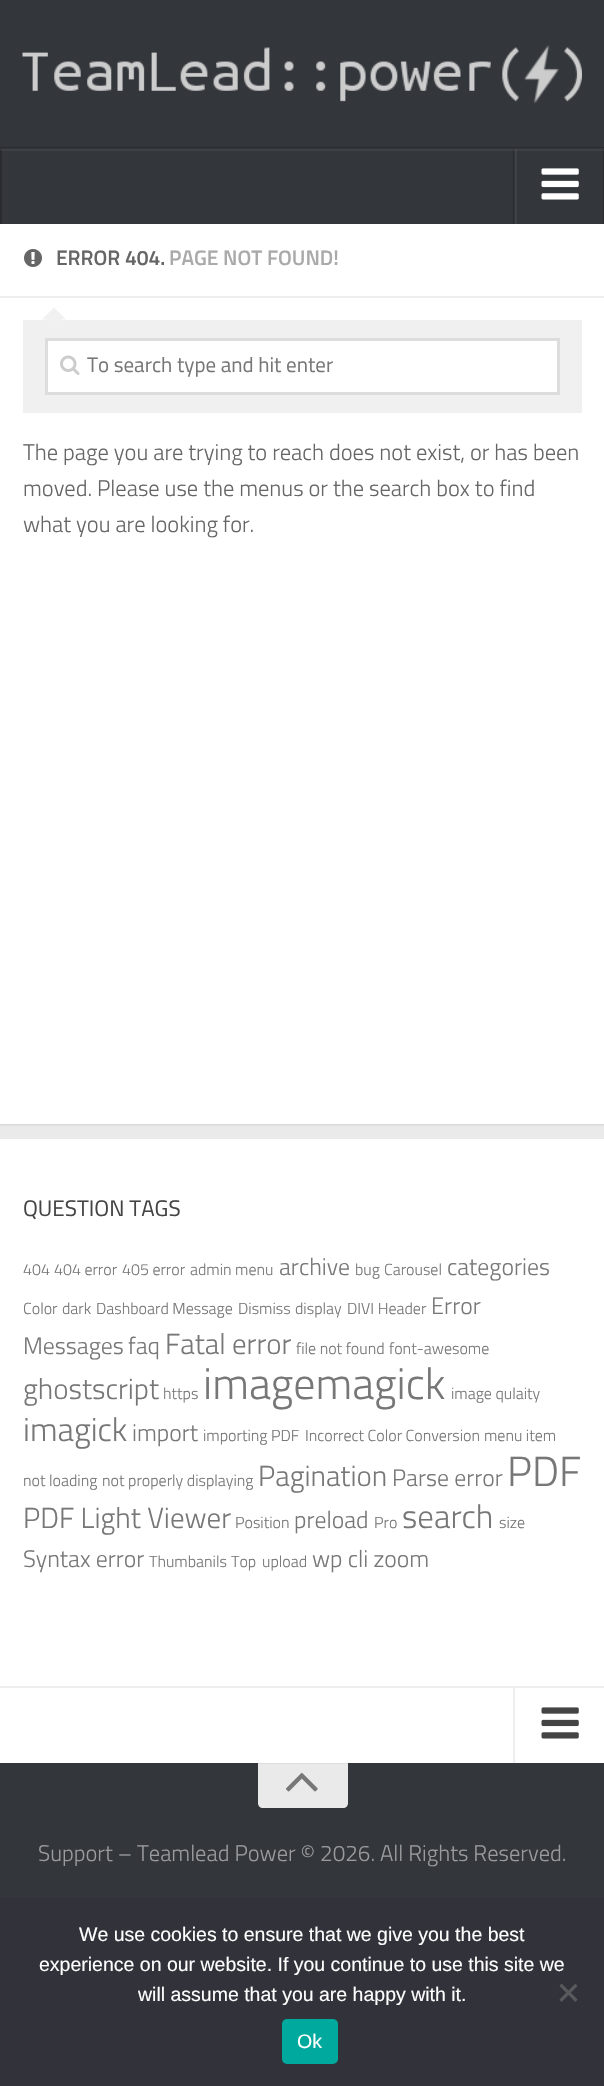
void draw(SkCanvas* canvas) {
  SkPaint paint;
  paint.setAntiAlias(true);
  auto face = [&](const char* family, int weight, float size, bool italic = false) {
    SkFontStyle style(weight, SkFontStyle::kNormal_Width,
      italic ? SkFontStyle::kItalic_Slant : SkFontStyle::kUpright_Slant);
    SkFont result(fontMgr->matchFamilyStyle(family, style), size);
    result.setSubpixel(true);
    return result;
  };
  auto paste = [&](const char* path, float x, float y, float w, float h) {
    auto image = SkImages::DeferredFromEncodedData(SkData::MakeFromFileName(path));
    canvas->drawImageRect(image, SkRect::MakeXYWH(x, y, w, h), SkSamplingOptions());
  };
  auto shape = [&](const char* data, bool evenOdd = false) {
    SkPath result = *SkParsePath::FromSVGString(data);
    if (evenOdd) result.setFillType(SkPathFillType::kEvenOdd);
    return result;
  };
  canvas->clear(0xffeaeaea);
  paint.setColor(0x1a000000);
  paint.setMaskFilter(SkMaskFilter::MakeBlur(kNormal_SkBlurStyle, 1));
  canvas->drawRect(SkRect::MakeXYWH(0, 225, 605, 900), paint);
  paint.setMaskFilter(nullptr);
  paint.setColor(0xff33363b);
  canvas->drawRect(SkRect::MakeXYWH(0, 0, 604, 224), paint);
  paint.setColor(0xff3d4045);
  canvas->drawRect(SkRect::MakeXYWH(0, 149, 604, 2), paint);
  paste("img/1.png", 22, 45, 560, 59);
  paint.setColor(0xff292b2f);
  canvas->drawPath(shape("M0 147V148H604V222H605V147Z"), paint);
  {
    const struct { float x, y, w, h; SkColor color; } items[] = {
      {603, 149, 1, 75, 0xff292b2f},
      {603, 149, 1, 2, 0xff343639},
      {0, 149, 2, 75, 0xff292b2f},
      {0, 149, 2, 2, 0xff343639},
    };
    for (auto [x, y, w, h, color] : items) {
      paint.setColor(color);
      canvas->drawRect(SkRect::MakeXYWH(x, y, w, h), paint);
    }
  }
  paint.setColor(0x33000000);
  canvas->drawPath(shape("M513 149V224H603H514V149Z"), paint);
  paint.setColor(0x0dffffff);
  canvas->drawRect(SkRect::MakeXYWH(515, 149, 2, 75), paint);
  paste("img/2.png", 541, 168, 38, 32);
  paint.setColor(0xffffffff);
  canvas->drawRect(SkRect::MakeXYWH(0, 224, 604, 900), paint);
  paint.setColor(0xffeeeeee);
  canvas->drawRect(SkRect::MakeXYWH(0, 296, 604, 2), paint);
  paste("img/3.png", 24, 249, 18, 18);
  paint.setColor(0xfff0f0f0);
  canvas->drawRect(SkRect::MakeXYWH(23, 320, 559, 93), paint);
  paint.setColor(0xfff1f1f1);
  canvas->drawPath(shape("M66 319.5H42L54 307.5Z"), paint);
  canvas->drawPath(shape("M63 321H45L54 312Z"), paint);
  paint.setColor(0xffffffff);
  canvas->drawRect(SkRect::MakeXYWH(46.5f, 339.5f, 512, 54), paint);
  paint.setStroke(true);
  paint.setStrokeWidth(3);
  paint.setColor(0xffdddddd);
  canvas->drawRect(SkRect::MakeXYWH(46.5f, 339.5f, 512, 54), paint);
  paste("img/4.png", 60, 355, 20, 20);
  paint.setStroke(false);
  {
    const struct { float x, y, w, h; SkColor color; } items[] = {
      {0, 1139, 604, 624, 0xffffffff},
      {0, 1686, 604, 2, 0xffeeeeee},
      {513, 1688, 2, 75, 0xffeeeeee},
    };
    for (auto [x, y, w, h, color] : items) {
      paint.setColor(color);
      canvas->drawRect(SkRect::MakeXYWH(x, y, w, h), paint);
    }
  }
  paste("img/5.png", 541, 1707, 38, 32);
  paint.setColor(0xff33363b);
  canvas->drawRect(SkRect::MakeXYWH(0, 1763, 604, 135), paint);
  paint.setColor(0xffeaeaea);
  canvas->drawPath(shape("M258 1763H348V1803C348 1806 346 1808 343 1808H263C260 1808 258 1806 258 1803Z"), paint);
  paint.setColor(0xffdedede);
  canvas->drawRect(SkRect::MakeXYWH(258, 1763, 90, 1), paint);
  paste("img/6.png", 286, 1773, 32, 19);
  paint.setColor(0xff32323a);
  canvas->drawRect(SkRect::MakeXYWH(0, 1898, 604, 188), paint);
  paint.setColor(0xff59595d);
  canvas->drawPath(shape("M575.5 1983.5L577.5 1986L561.5 2002L559.5 1999.5Z"), paint);
  canvas->drawPath(shape("M559.5 1986L561.5 1983.5L577.5 1999.5L575.5 2002Z"), paint);
  paint.setColor(0xff00a99d);
  canvas->drawRoundRect(SkRect::MakeXYWH(282, 2019, 56, 45), 5, 5, paint);
  auto f0 = face("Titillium", 600, 21);
  paint.setColor(0xff666666);
  canvas->drawString("ERROR 404.", 56, 265, f0, paint);
  paint.setColor(0xffaaaaaa);
  canvas->drawString("PAGE NOT FOUND!", 169, 265, f0, paint);
  auto f1 = face("Titillium", 400, 21);
  paint.setColor(0xff777777);
  canvas->drawString("To search type and hit enter", 87, 372, f1, paint);
  auto f2 = face("Titillium", 300, 22.5f);
  paint.setColor(0xff666666);
  {
    const struct { const char* s; float x, y; } items[] = {
      {"The page you are trying to reach does not exist, or has been", 23, 460},
      {"moved. Please use the menus or the search box to find", 23, 496},
      {"what you are looking for.", 23, 532},
    };
    for (auto [s, x, y] : items) {
      canvas->drawString(s, x, y, f2, paint);
    }
  }
  auto f3 = face("Titillium", 400, 22.5f);
  paint.setColor(0xff444444);
  canvas->drawString("QUESTION TAGS", 23, 1216, f3, paint);
  auto f4 = face("Titillium", 300, 16);
  paint.setColor(0xff777777);
  {
    const struct { const char* s; float x, y; } items[] = {
      {"404", 23, 1275},
      {"404 error", 54, 1275},
      {"405 error", 122, 1275},
      {"admin menu", 190, 1275},
    };
    for (auto [s, x, y] : items) {
      canvas->drawString(s, x, y, f4, paint);
    }
  }
  auto f5 = face("Titillium", 300, 23.75f);
  canvas->drawString("archive", 279, 1275, f5, paint);
  canvas->drawString("bug", 355, 1275, f4, paint);
  canvas->drawString("Carousel", 384, 1275, f4, paint);
  canvas->drawString("categories", 447, 1275, f5, paint);
  {
    const struct { const char* s; float x, y; } items[] = {
      {"Color", 23, 1314},
      {"dark", 62, 1314},
      {"Dashboard Message", 96, 1314},
      {"Dismiss", 238, 1314},
      {"display", 295, 1314},
      {"DIVI Header", 347, 1314},
    };
    for (auto [s, x, y] : items) {
      canvas->drawString(s, x, y, f4, paint);
    }
  }
  {
    const struct { const char* s; float x, y; } items[] = {
      {"Error", 431, 1314},
      {"Messages", 23, 1354},
      {"faq", 128, 1354},
    };
    for (auto [s, x, y] : items) {
      canvas->drawString(s, x, y, f5, paint);
    }
  }
  auto f6 = face("Titillium", 300, 29);
  canvas->drawString("Fatal error", 165, 1354, f6, paint);
  canvas->drawString("file not found", 296, 1354, f4, paint);
  canvas->drawString("font-awesome", 389, 1354, f4, paint);
  canvas->drawString("ghostscript", 23, 1399, f6, paint);
  canvas->drawString("https", 163, 1399, f4, paint);
  auto f7 = face("Titillium", 300, 44);
  canvas->drawString("imagemagick", 203, 1399, f7, paint);
  canvas->drawString("image qulaity", 451, 1399, f4, paint);
  auto f8 = face("Titillium", 300, 33);
  canvas->drawString("imagick", 23, 1441, f8, paint);
  canvas->drawString("import", 132, 1441, f5, paint);
  {
    const struct { const char* s; float x, y; } items[] = {
      {"importing PDF", 203, 1441},
      {"Incorrect Color Conversion", 305, 1441},
      {"menu item", 484, 1441},
      {"not loading", 23, 1486},
      {"not properly displaying", 102, 1486},
    };
    for (auto [s, x, y] : items) {
      canvas->drawString(s, x, y, f4, paint);
    }
  }
  canvas->drawString("Pagination", 258, 1486, f6, paint);
  canvas->drawString("Parse error", 392, 1486, f5, paint);
  auto f9 = face("Titillium", 300, 42);
  canvas->drawString("PDF", 507, 1486, f9, paint);
  canvas->drawString("PDF Light Viewer", 23, 1528, f6, paint);
  canvas->drawString("Position", 235, 1528, f4, paint);
  canvas->drawString("preload", 294, 1528, f5, paint);
  canvas->drawString("Pro", 374, 1528, f4, paint);
  canvas->drawString("search", 402, 1528, f8, paint);
  canvas->drawString("size", 499, 1528, f4, paint);
  canvas->drawString("Syntax error", 23, 1567, f5, paint);
  {
    const struct { const char* s; float x, y; } items[] = {
      {"Thumbanils", 149, 1567},
      {"Top", 231, 1567},
      {"upload", 262, 1567},
    };
    for (auto [s, x, y] : items) {
      canvas->drawString(s, x, y, f4, paint);
    }
  }
  canvas->drawString("wp cli zoom", 312, 1567, f5, paint);
  paint.setColor(0xff999b9d);
  canvas->drawString("Support – Teamlead Power © 2026. All Rights Reserved.", 38, 1861, f2, paint);
  auto f10 = face("Liberation Sans", 400, 19.5f);
  paint.setColor(0xffffffff);
  {
    const struct { const char* s; float x, y; } items[] = {
      {"We use cookies to ensure that we give you the best", 79, 1941},
      {"experience on our website. If you continue to use this site we", 39, 1971},
      {"will assume that you are happy with it.", 138, 2001},
      {"Ok", 297, 2048},
    };
    for (auto [s, x, y] : items) {
      canvas->drawString(s, x, y, f10, paint);
    }
  }
}
